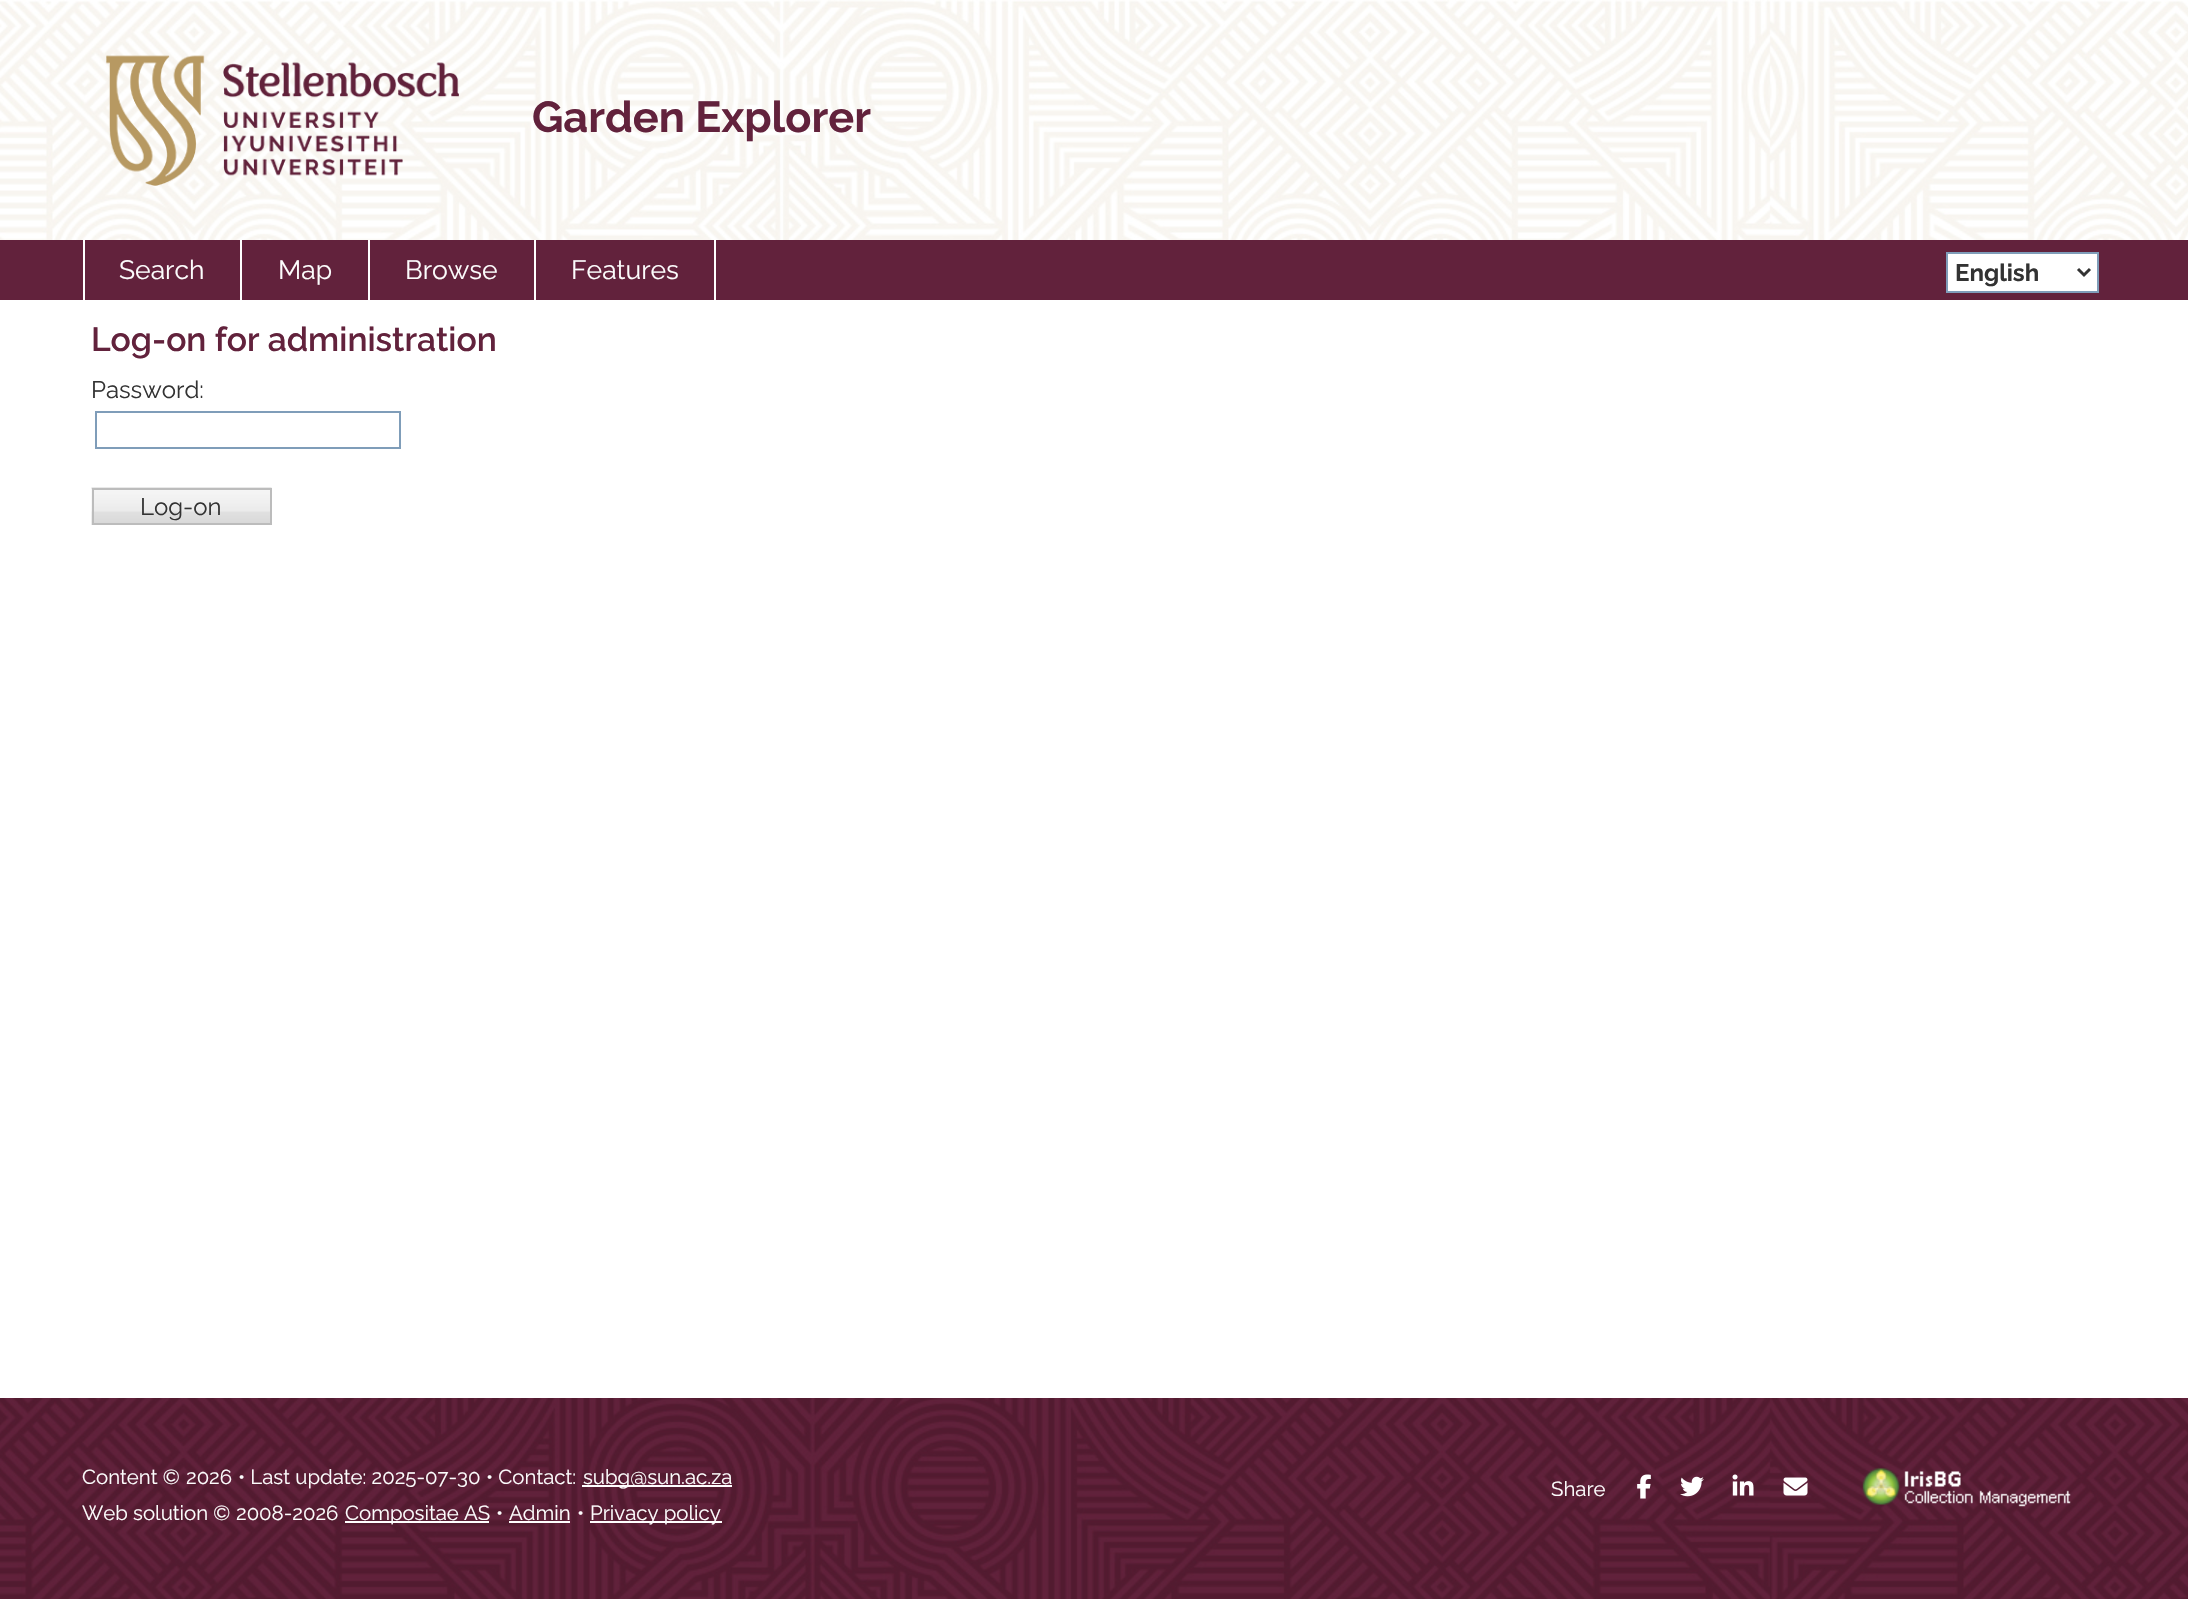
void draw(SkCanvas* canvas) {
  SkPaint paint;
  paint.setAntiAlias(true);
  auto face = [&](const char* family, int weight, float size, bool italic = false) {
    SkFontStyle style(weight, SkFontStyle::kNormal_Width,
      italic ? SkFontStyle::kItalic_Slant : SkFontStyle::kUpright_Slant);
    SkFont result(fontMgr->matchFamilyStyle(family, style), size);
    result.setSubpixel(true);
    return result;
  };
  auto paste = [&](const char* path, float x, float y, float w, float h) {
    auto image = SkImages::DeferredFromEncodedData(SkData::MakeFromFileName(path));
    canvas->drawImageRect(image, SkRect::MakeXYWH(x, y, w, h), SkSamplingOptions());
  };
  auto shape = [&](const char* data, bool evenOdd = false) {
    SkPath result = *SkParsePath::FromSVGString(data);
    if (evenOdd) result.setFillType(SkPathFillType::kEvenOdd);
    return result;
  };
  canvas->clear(0xffffffff);
  paste("img/1.png", 0, 0, 2188, 240);
  paste("img/2.png", 106, 55, 353, 131);
  {
    const struct { float x, y, w, h; SkColor color; } items[] = {
      {0, 240, 2188, 60, 0xff62223c},
      {83, 240, 2, 60, 0xffffffff},
      {240, 240, 2, 60, 0xffffffff},
      {368, 240, 2, 60, 0xffffffff},
      {534, 240, 2, 60, 0xffffffff},
      {714, 240, 2, 60, 0xffffffff},
    };
    for (auto [x, y, w, h, color] : items) {
      paint.setColor(color);
      canvas->drawRect(SkRect::MakeXYWH(x, y, w, h), paint);
    }
  }
  canvas->drawRect(SkRect::MakeXYWH(1947, 253, 151, 39), paint);
  paint.setStroke(true);
  paint.setStrokeWidth(2);
  paint.setColor(0xff7f9db9);
  canvas->drawRect(SkRect::MakeXYWH(1947, 253, 151, 39), paint);
  paint.setStrokeWidth(3);
  paint.setColor(0xff333333);
  canvas->drawPath(shape("M2078 269L2084 275L2090 269"), paint);
  paint.setStrokeWidth(2);
  paint.setColor(0xff7f9db9);
  canvas->drawRect(SkRect::MakeXYWH(96, 412, 304, 36), paint);
  paste("img/3.png", 91, 487, 181, 38);
  paint.setColor(0xffbcbcbc);
  canvas->drawRect(SkRect::MakeXYWH(93, 489, 178, 35), paint);
  paste("img/4.png", 0, 1398, 2188, 201);
  paint.setStroke(false);
  {
    const struct { float x, y, w, h; SkColor color; } items[] = {
      {582, 1485, 150, 2, 0xffffffff},
      {345, 1521, 144, 2, 0xffffffff},
      {509, 1521, 61, 2, 0xffffffff},
      {590, 1521, 132, 2, 0xffffffff},
    };
    for (auto [x, y, w, h, color] : items) {
      paint.setColor(color);
      canvas->drawRect(SkRect::MakeXYWH(x, y, w, h), paint);
    }
  }
  paste("img/5.png", 1637, 1474, 14, 25);
  paste("img/6.png", 1680, 1476, 24, 21);
  paste("img/7.png", 1732, 1474, 22, 22);
  paste("img/8.png", 1783, 1477, 25, 19);
  paste("img/9.png", 1862, 1468, 209, 39);
  auto f0 = face("Raleway", 700, 43.25f);
  paint.setColor(0xff62223c);
  canvas->drawString("Garden Explorer", 532, 132, f0, paint);
  auto f1 = face("Raleway", 400, 26.5f);
  paint.setColor(0xfffdfdfd);
  {
    const struct { const char* s; float x, y; } items[] = {
      {"Search", 119, 279},
      {"Map", 278, 279},
      {"Browse", 405, 279},
      {"Features", 571, 279},
    };
    for (auto [s, x, y] : items) {
      canvas->drawString(s, x, y, f1, paint);
    }
  }
  auto f2 = face("Raleway", 700, 24);
  paint.setColor(0xff333333);
  canvas->drawString("English", 1955, 281, f2, paint);
  auto f3 = face("Raleway", 600, 33.6f);
  paint.setColor(0xff62223c);
  canvas->drawString("Log-on for administration", 91, 351, f3, paint);
  auto f4 = face("Raleway", 400, 24);
  paint.setColor(0xff333333);
  canvas->drawString("Password:", 91, 398, f4, paint);
  canvas->drawString("Log-on", 140, 515, f4, paint);
  auto f5 = face("Raleway", 400, 20.4f);
  paint.setColor(0xfffdfdfd);
  {
    const struct { const char* s; float x, y; } items[] = {
      {"Content ©", 82, 1484},
      {"2026", 186, 1484},
      {"• Last update: 2025-07-30", 238, 1484},
      {"• Contact:", 486, 1484},
      {"subg@sun.ac.za", 583, 1484},
      {"Web solution ©", 82, 1520},
      {"2008-2026", 236, 1520},
      {"Compositae AS", 345, 1520},
      {"•", 496, 1520},
      {"Admin", 509, 1520},
      {"•", 577, 1520},
      {"Privacy policy", 590, 1520},
      {"Share", 1551, 1496},
    };
    for (auto [s, x, y] : items) {
      canvas->drawString(s, x, y, f5, paint);
    }
  }
}
